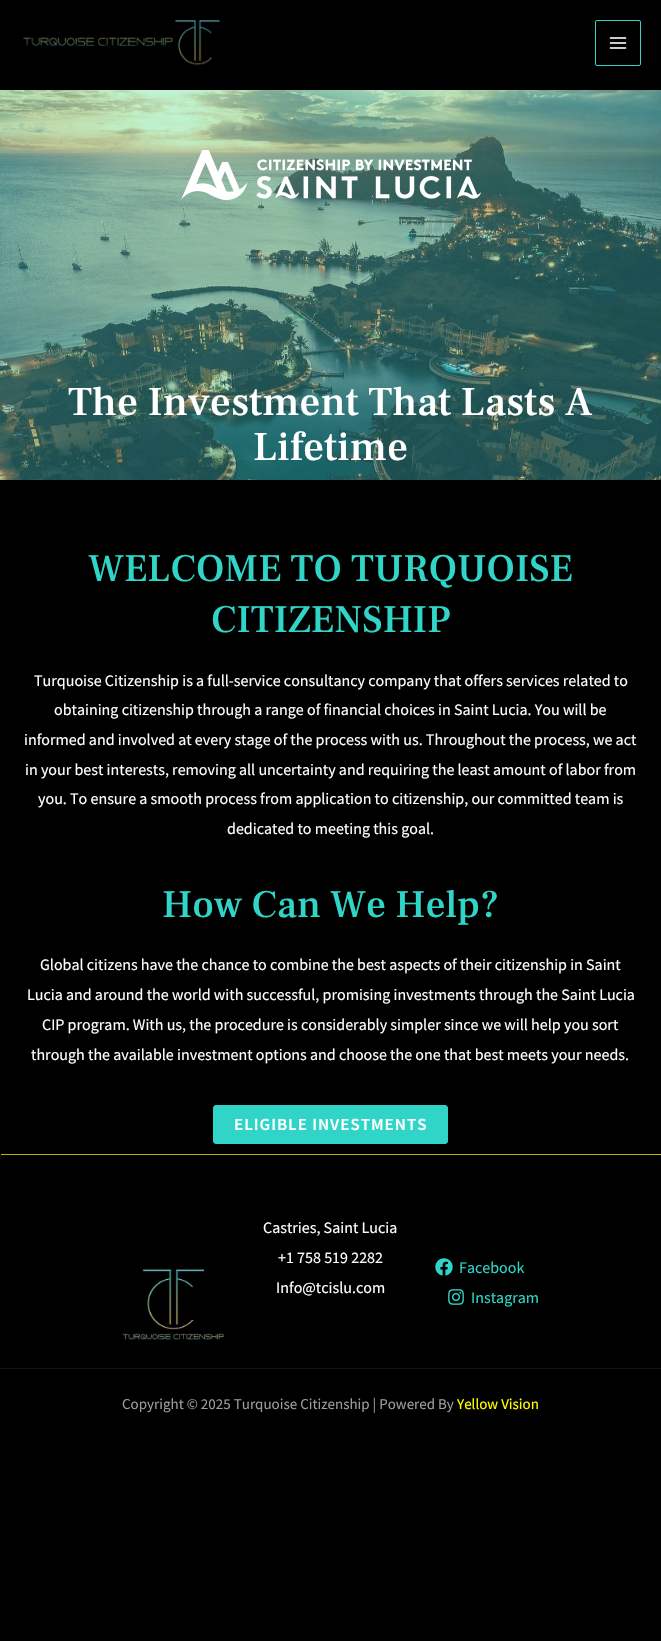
void draw(SkCanvas* canvas) {
  SkPaint paint;
  paint.setAntiAlias(true);
  auto face = [&](const char* family, int weight, float size, bool italic = false) {
    SkFontStyle style(weight, SkFontStyle::kNormal_Width,
      italic ? SkFontStyle::kItalic_Slant : SkFontStyle::kUpright_Slant);
    SkFont result(fontMgr->matchFamilyStyle(family, style), size);
    result.setSubpixel(true);
    return result;
  };
  auto writeSpaced = [&](const char* s, float x, float y, const SkFont& font, const SkPaint& ink, float letter, float word) {
    std::vector<SkGlyphID> glyphs(font.countText(s, strlen(s), SkTextEncoding::kUTF8));
    std::vector<float> xs(glyphs.size());
    font.textToGlyphs(s, strlen(s), SkTextEncoding::kUTF8, glyphs);
    font.getXPos(glyphs, xs, x);
    float extra = 0;
    for (size_t i = 0; i < glyphs.size(); i++) {
      xs[i] += extra;
      extra += letter + word * (glyphs[i] == font.unicharToGlyph(' '));
    }
    canvas->drawTextBlob(SkTextBlob::MakeFromPosHGlyphs(glyphs, xs, y, font), 0, 0, ink);
  };
  auto paste = [&](const char* path, float x, float y, float w, float h) {
    auto image = SkImages::DeferredFromEncodedData(SkData::MakeFromFileName(path));
    canvas->drawImageRect(image, SkRect::MakeXYWH(x, y, w, h), SkSamplingOptions());
  };
  auto shape = [&](const char* data, bool evenOdd = false) {
    SkPath result = *SkParsePath::FromSVGString(data);
    if (evenOdd) result.setFillType(SkPathFillType::kEvenOdd);
    return result;
  };
  canvas->clear(0xff000000);
  paste("img/1.png", 22, 20, 198, 45);
  paint.setStroke(true);
  paint.setStrokeWidth(1);
  paint.setColor(0xff30d5c8);
  canvas->drawRoundRect(SkRect::MakeXYWH(595.5f, 20.5f, 45, 45), 1.5f, 1.5f, paint);
  paste("img/2.png", 609, 37, 18, 12);
  paste("img/3.png", 0, 90, 661, 390);
  paste("img/4.png", 181, 150, 300, 50);
  paint.setStroke(false);
  paint.setColor(0xffffd700);
  canvas->drawRect(SkRect::MakeXYWH(1, 1154, 660, 1), paint);
  canvas->save();
  canvas->clipPath(shape("M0 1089H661V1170H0ZM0 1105H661V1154H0Z", true), true);
  paint.setColor(0x80000000);
  paint.setMaskFilter(SkMaskFilter::MakeBlur(kNormal_SkBlurStyle, 5));
  canvas->drawRect(SkRect::MakeXYWH(0, 1105, 661, 49), paint);
  paint.setMaskFilter(nullptr);
  canvas->restore();
  paint.setColor(0xff30d5c8);
  canvas->drawRoundRect(SkRect::MakeXYWH(213.5f, 1105.5f, 234, 38), 2.5f, 2.5f, paint);
  paint.setStroke(true);
  canvas->drawRoundRect(SkRect::MakeXYWH(213.5f, 1105.5f, 234, 38), 2.5f, 2.5f, paint);
  paste("img/5.png", 121, 1266, 104, 74);
  paste("img/6.png", 435, 1258, 18, 18);
  paste("img/7.png", 448, 1289, 16, 16);
  paint.setStroke(false);
  paint.setColor(0xff141414);
  canvas->drawRect(SkRect::MakeXYWH(0, 1368, 661, 1), paint);
  auto f0 = face("Frank Ruhl Libre", 500, 41);
  paint.setColor(0xffffffff);
  canvas->drawString("The Investment That Lasts A", 68, 415, f0, paint);
  canvas->drawString("Lifetime", 253, 460, f0, paint);
  auto f1 = face("Frank Ruhl Libre", 500, 39);
  paint.setColor(0xff30d5c8);
  canvas->drawString("WELCOME TO TURQUOISE", 88, 581, f1, paint);
  canvas->drawString("CITIZENSHIP", 211, 632, f1, paint);
  auto f2 = face("Source Sans Pro", 400, 16);
  paint.setColor(0xffffffff);
  {
    const struct { const char* s; float x, y; } items[] = {
      {"Turquoise Citizenship is a full-service consultancy company that offers services related to", 34, 686},
      {"obtaining citizenship through a range of financial choices in Saint Lucia. You will be", 54, 715},
      {"informed and involved at every stage of the process with us. Throughout the process, we act", 24, 745},
      {"in your best interests, removing all uncertainty and requiring the least amount of labor from", 25, 775},
      {"you. To ensure a smooth process from application to citizenship, our committed team is", 38, 804},
      {"dedicated to meeting this goal.", 227, 834},
    };
    for (auto [s, x, y] : items) {
      canvas->drawString(s, x, y, f2, paint);
    }
  }
  paint.setColor(0xff30d5c8);
  canvas->drawString("How Can We Help?", 162, 917, f1, paint);
  paint.setColor(0xffffffff);
  {
    const struct { const char* s; float x, y; } items[] = {
      {"Global citizens have the chance to combine the best aspects of their citizenship in Saint", 40, 970},
      {"Lucia and around the world with successful, promising investments through the Saint Lucia", 27, 1000},
      {"CIP program. With us, the procedure is considerably simpler since we will help you sort", 42, 1030},
      {"through the available investment options and choose the one that best meets your needs.", 31, 1060},
    };
    for (auto [s, x, y] : items) {
      canvas->drawString(s, x, y, f2, paint);
    }
  }
  auto f3 = face("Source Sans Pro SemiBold", 600, 17);
  writeSpaced("ELIGIBLE INVESTMENTS", 234, 1130, f3, paint, 1, 0);
  {
    const struct { const char* s; float x, y; } items[] = {
      {"Castries, Saint Lucia", 263, 1233},
      {"+1 758 519 2282", 278, 1263},
      {"Info@tcislu.com", 276, 1293},
    };
    for (auto [s, x, y] : items) {
      canvas->drawString(s, x, y, f2, paint);
    }
  }
  paint.setColor(0xff30d5c8);
  canvas->drawString("Facebook", 459, 1273, f2, paint);
  canvas->drawString("Instagram", 471, 1303, f2, paint);
  auto f4 = face("Source Sans Pro", 400, 15);
  paint.setColor(0xff9e9e9e);
  canvas->drawString("Copyright © 2025 Turquoise Citizenship | Powered By", 122, 1409, f4, paint);
  paint.setColor(0xffffff00);
  canvas->drawString("Yellow Vision", 457, 1409, f4, paint);
}
